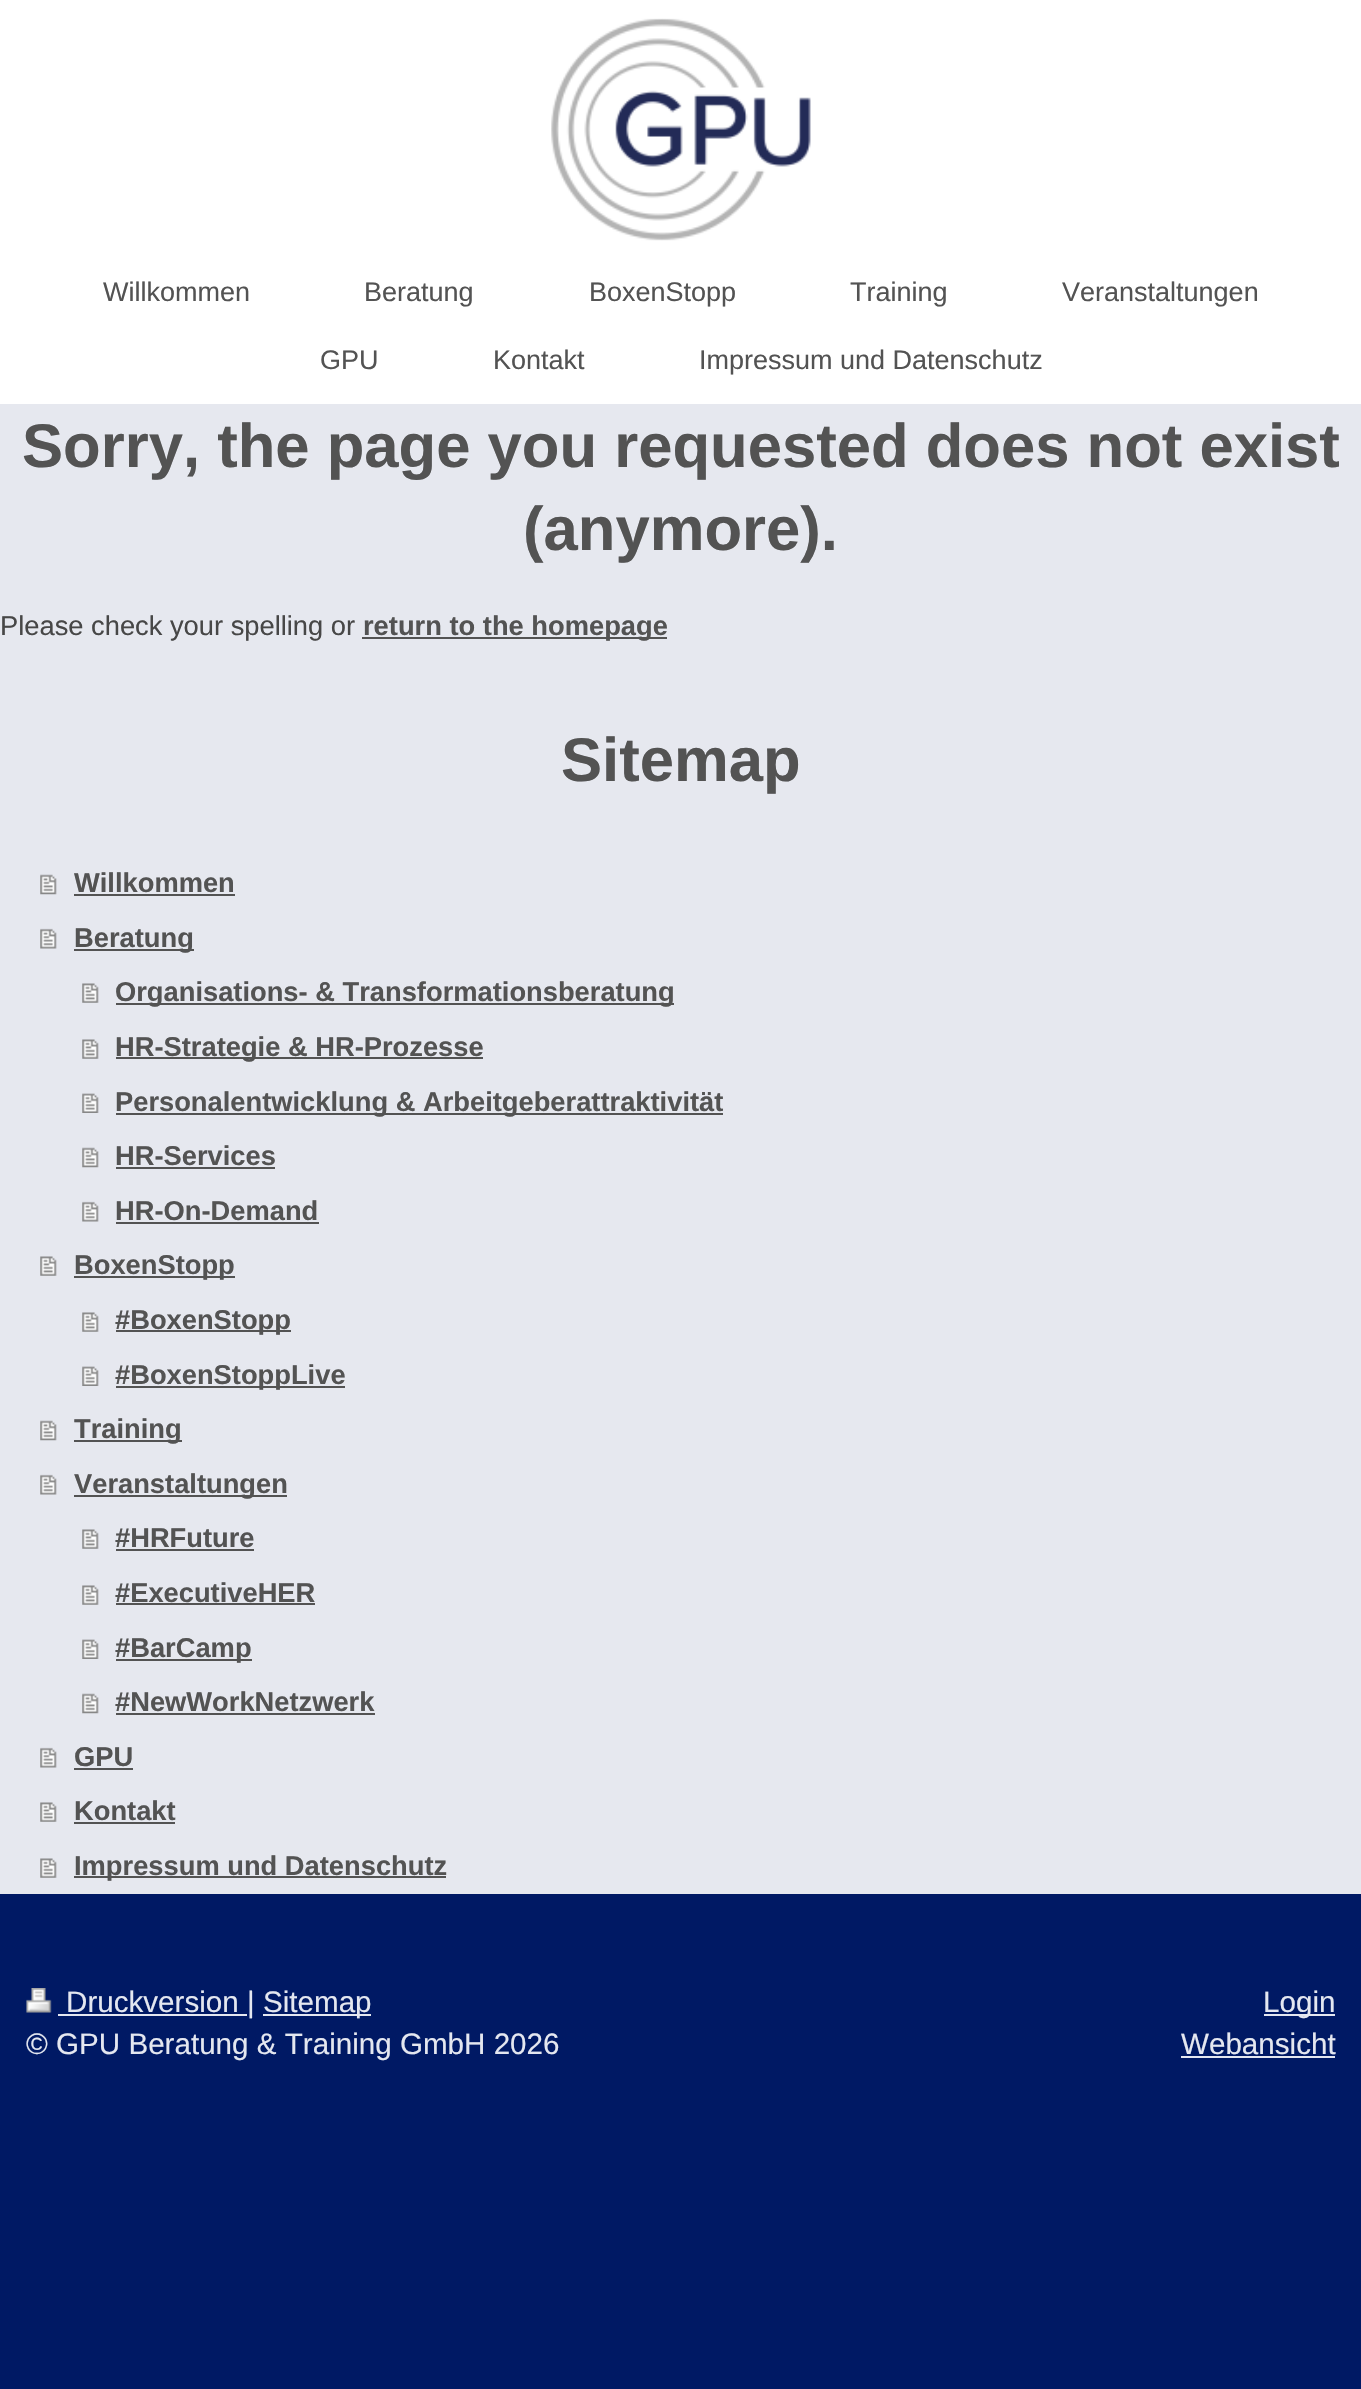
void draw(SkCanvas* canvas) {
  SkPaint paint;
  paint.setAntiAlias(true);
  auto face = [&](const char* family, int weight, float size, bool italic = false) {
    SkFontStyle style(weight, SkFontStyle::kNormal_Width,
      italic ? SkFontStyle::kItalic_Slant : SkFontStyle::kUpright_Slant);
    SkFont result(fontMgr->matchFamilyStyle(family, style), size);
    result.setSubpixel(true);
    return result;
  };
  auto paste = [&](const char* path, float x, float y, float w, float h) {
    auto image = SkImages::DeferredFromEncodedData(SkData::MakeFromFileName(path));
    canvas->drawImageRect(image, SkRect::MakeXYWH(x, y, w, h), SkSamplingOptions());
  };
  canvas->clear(0xff001964);
  paint.setColor(0xffffffff);
  canvas->drawRect(SkRect::MakeXYWH(0, 0, 1361, 404), paint);
  paste("img/1.png", 551, 18, 260, 223);
  paint.setColor(0xffe6e8ef);
  canvas->drawRect(SkRect::MakeXYWH(0, 404, 1361, 1490), paint);
  paint.setColor(0xff535353);
  canvas->drawRect(SkRect::MakeXYWH(362, 637, 305, 2), paint);
  paste("img/2.png", 40, 874, 17, 21);
  canvas->drawRect(SkRect::MakeXYWH(74, 894, 161, 2), paint);
  paste("img/3.png", 40, 928, 17, 21);
  canvas->drawRect(SkRect::MakeXYWH(74, 949, 120, 2), paint);
  paste("img/4.png", 82, 983, 17, 20);
  canvas->drawRect(SkRect::MakeXYWH(116, 1003, 558, 2), paint);
  paste("img/4.png", 82, 1039, 17, 20);
  canvas->drawRect(SkRect::MakeXYWH(116, 1057, 367, 2), paint);
  paste("img/5.png", 82, 1093, 17, 20);
  canvas->drawRect(SkRect::MakeXYWH(116, 1113, 607, 2), paint);
  paste("img/2.png", 82, 1147, 17, 21);
  canvas->drawRect(SkRect::MakeXYWH(116, 1167, 159, 2), paint);
  paste("img/3.png", 82, 1201, 17, 21);
  canvas->drawRect(SkRect::MakeXYWH(116, 1222, 203, 2), paint);
  paste("img/4.png", 40, 1256, 17, 20);
  canvas->drawRect(SkRect::MakeXYWH(74, 1276, 161, 2), paint);
  paste("img/4.png", 82, 1312, 17, 20);
  canvas->drawRect(SkRect::MakeXYWH(116, 1330, 175, 2), paint);
  paste("img/5.png", 82, 1366, 17, 20);
  canvas->drawRect(SkRect::MakeXYWH(116, 1386, 229, 2), paint);
  paste("img/2.png", 40, 1420, 17, 21);
  canvas->drawRect(SkRect::MakeXYWH(74, 1440, 108, 2), paint);
  paste("img/3.png", 40, 1474, 17, 21);
  canvas->drawRect(SkRect::MakeXYWH(74, 1495, 213, 2), paint);
  paste("img/4.png", 82, 1529, 17, 20);
  canvas->drawRect(SkRect::MakeXYWH(116, 1549, 138, 2), paint);
  paste("img/4.png", 82, 1585, 17, 20);
  canvas->drawRect(SkRect::MakeXYWH(116, 1603, 199, 2), paint);
  paste("img/5.png", 82, 1639, 17, 20);
  canvas->drawRect(SkRect::MakeXYWH(116, 1659, 136, 2), paint);
  paste("img/2.png", 82, 1693, 17, 21);
  canvas->drawRect(SkRect::MakeXYWH(116, 1713, 259, 2), paint);
  paste("img/3.png", 40, 1747, 17, 21);
  canvas->drawRect(SkRect::MakeXYWH(74, 1768, 59, 2), paint);
  paste("img/6.png", 40, 1802, 17, 20);
  canvas->drawRect(SkRect::MakeXYWH(74, 1822, 101, 2), paint);
  paste("img/4.png", 40, 1858, 17, 20);
  canvas->drawRect(SkRect::MakeXYWH(74, 1876, 372, 2), paint);
  paste("img/7.png", 26, 1988, 26, 25);
  {
    const struct { float x, y, w, h; SkColor color; } items[] = {
      {58, 2014, 189, 2, 0xffe4e7f0},
      {263, 2014, 108, 2, 0xffe4e7f0},
      {1264, 2014, 71, 2, 0xffe4e7f0},
      {1181, 2056, 154, 2, 0xffe4e7f0},
    };
    for (auto [x, y, w, h, color] : items) {
      paint.setColor(color);
      canvas->drawRect(SkRect::MakeXYWH(x, y, w, h), paint);
    }
  }
  auto f0 = face("Liberation Sans", 400, 27);
  paint.setColor(0xff535353);
  {
    const struct { const char* s; float x, y; } items[] = {
      {"Willkommen", 103, 301},
      {"Beratung", 364, 301},
      {"BoxenStopp", 589, 301},
      {"Training", 850, 301},
      {"Veranstaltungen", 1062, 301},
      {"GPU", 320, 369},
      {"Kontakt", 493, 369},
      {"Impressum und Datenschutz", 699, 369},
    };
    for (auto [s, x, y] : items) {
      canvas->drawString(s, x, y, f0, paint);
    }
  }
  auto f1 = face("Liberation Sans", 700, 61.6f);
  canvas->drawString("Sorry, the page you requested does not exist", 22, 467, f1, paint);
  canvas->drawString("(anymore).", 523, 550, f1, paint);
  auto f2 = face("Liberation Sans", 400, 27.3f);
  paint.setColor(0xff474747);
  canvas->drawString("Please check your spelling or", 0, 635, f2, paint);
  auto f3 = face("Liberation Sans", 700, 27.3f);
  paint.setColor(0xff535353);
  canvas->drawString("return to the homepage", 363, 635, f3, paint);
  canvas->drawString("Sitemap", 561, 781, f1, paint);
  {
    const struct { const char* s; float x, y; } items[] = {
      {"Willkommen", 74, 892},
      {"Beratung", 74, 947},
      {"Organisations- & Transformationsberatung", 115, 1001},
      {"HR-Strategie & HR-Prozesse", 115, 1056},
      {"Personalentwicklung & Arbeitgeberattraktivität", 115, 1111},
      {"HR-Services", 115, 1165},
      {"HR-On-Demand", 115, 1220},
      {"BoxenStopp", 74, 1274},
      {"#BoxenStopp", 115, 1329},
      {"#BoxenStoppLive", 115, 1384},
      {"Training", 74, 1438},
      {"Veranstaltungen", 74, 1493},
      {"#HRFuture", 115, 1547},
      {"#ExecutiveHER", 115, 1602},
      {"#BarCamp", 115, 1657},
      {"#NewWorkNetzwerk", 115, 1711},
      {"GPU", 74, 1766},
      {"Kontakt", 74, 1820},
      {"Impressum und Datenschutz", 74, 1875},
    };
    for (auto [s, x, y] : items) {
      canvas->drawString(s, x, y, f3, paint);
    }
  }
  auto f4 = face("Liberation Sans", 400, 29.6f);
  paint.setColor(0xffe4e7f0);
  {
    const struct { const char* s; float x, y; } items[] = {
      {"Druckversion |", 66, 2012},
      {"Sitemap", 263, 2012},
      {"© GPU Beratung & Training GmbH 2026", 26, 2054},
      {"Login", 1263, 2012},
      {"Webansicht", 1181, 2054},
    };
    for (auto [s, x, y] : items) {
      canvas->drawString(s, x, y, f4, paint);
    }
  }
}
